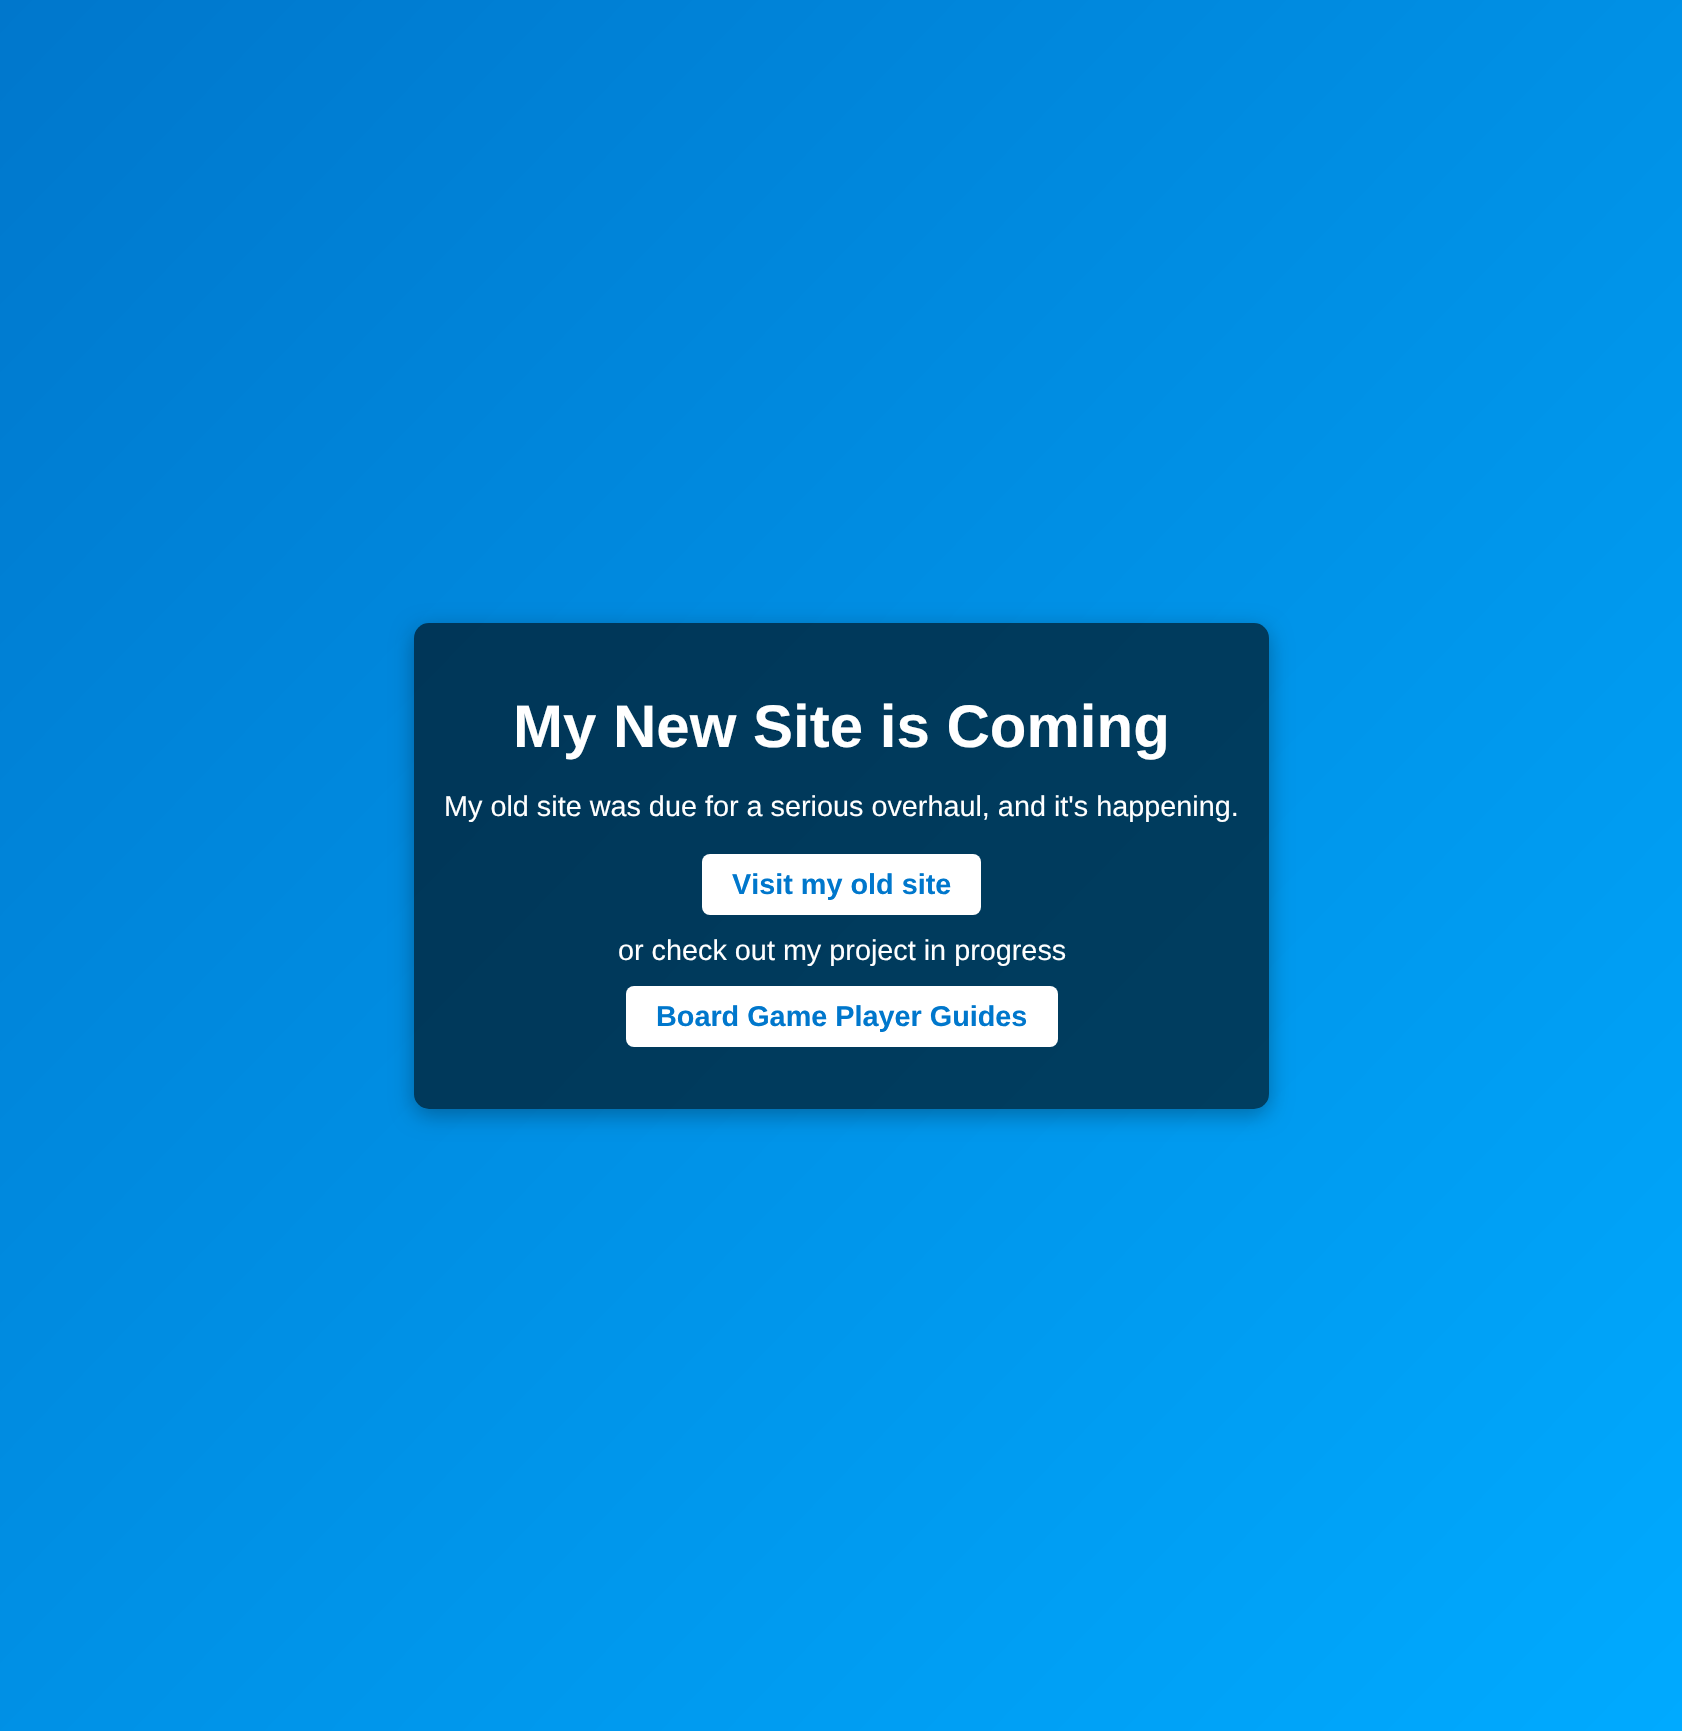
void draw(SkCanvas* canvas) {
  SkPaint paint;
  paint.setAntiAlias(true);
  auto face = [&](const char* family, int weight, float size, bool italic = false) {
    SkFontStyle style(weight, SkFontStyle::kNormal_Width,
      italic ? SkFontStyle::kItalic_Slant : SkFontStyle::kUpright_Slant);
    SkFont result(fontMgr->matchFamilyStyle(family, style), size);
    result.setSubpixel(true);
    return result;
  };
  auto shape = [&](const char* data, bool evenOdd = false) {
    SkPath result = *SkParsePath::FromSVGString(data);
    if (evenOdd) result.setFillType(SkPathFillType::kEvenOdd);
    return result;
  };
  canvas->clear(0xffffffff);
  {
    const SkColor colors[] = {0xff0077cc, 0xff00aaff};
    const float stops[] = {0, 1};
    const SkPoint ends[] = {{-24, 24}, {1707, 1707}};
    paint.setShader(SkGradientShader::MakeLinear(ends, colors, stops, 2, SkTileMode::kClamp));
    paint.setAlpha(255);
  }
  canvas->drawRect(SkRect::MakeXYWH(0, 0, 1682, 1731), paint);
  canvas->save();
  canvas->clipPath(shape("M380 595H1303V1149H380ZM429 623H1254C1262.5 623 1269 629.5 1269 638V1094C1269 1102.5 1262.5 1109 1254 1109H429C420.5 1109 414 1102.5 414 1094V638C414 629.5 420.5 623 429 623Z", true), true);
  paint.setShader(nullptr);
  paint.setColor(0x4d000000);
  paint.setMaskFilter(SkMaskFilter::MakeBlur(kNormal_SkBlurStyle, 11));
  canvas->drawRoundRect(SkRect::MakeXYWH(414, 629, 855, 486), 15, 15, paint);
  paint.setMaskFilter(nullptr);
  canvas->restore();
  paint.setColor(0x99000000);
  canvas->drawRoundRect(SkRect::MakeXYWH(414, 623, 855, 486), 15, 15, paint);
  paint.setColor(0xffffffff);
  canvas->drawRoundRect(SkRect::MakeXYWH(702, 854, 279, 61), 8, 8, paint);
  canvas->drawRoundRect(SkRect::MakeXYWH(626, 986, 432, 61), 8, 8, paint);
  auto f0 = face("Liberation Sans", 700, 60);
  canvas->drawString("My New Site is Coming", 513, 747, f0, paint);
  auto f1 = face("Liberation Sans", 400, 28.8f);
  canvas->drawString("My old site was due for a serious overhaul, and it's happening.", 444, 816, f1, paint);
  auto f2 = face("Liberation Sans", 700, 28.8f);
  paint.setColor(0xff0077cc);
  canvas->drawString("Visit my old site", 732, 894, f2, paint);
  paint.setColor(0xffffffff);
  canvas->drawString("or check out my project in progress", 618, 960, f1, paint);
  paint.setColor(0xff0077cc);
  canvas->drawString("Board Game Player Guides", 656, 1026, f2, paint);
}
